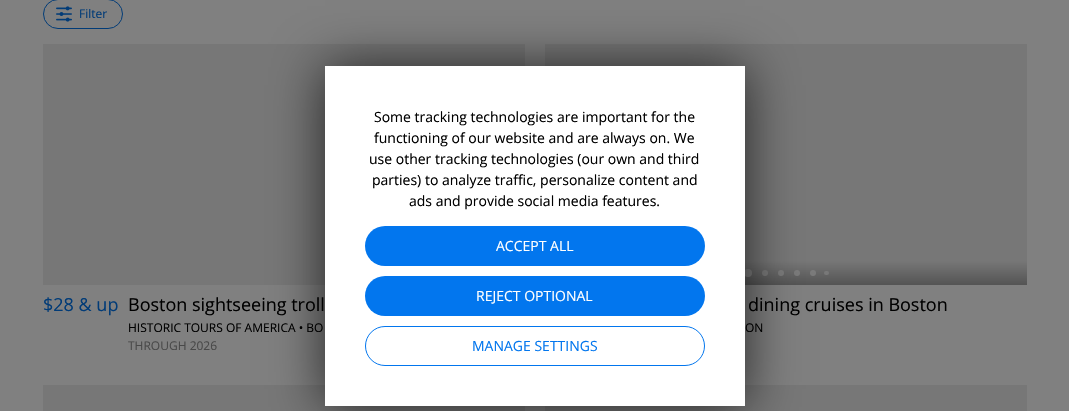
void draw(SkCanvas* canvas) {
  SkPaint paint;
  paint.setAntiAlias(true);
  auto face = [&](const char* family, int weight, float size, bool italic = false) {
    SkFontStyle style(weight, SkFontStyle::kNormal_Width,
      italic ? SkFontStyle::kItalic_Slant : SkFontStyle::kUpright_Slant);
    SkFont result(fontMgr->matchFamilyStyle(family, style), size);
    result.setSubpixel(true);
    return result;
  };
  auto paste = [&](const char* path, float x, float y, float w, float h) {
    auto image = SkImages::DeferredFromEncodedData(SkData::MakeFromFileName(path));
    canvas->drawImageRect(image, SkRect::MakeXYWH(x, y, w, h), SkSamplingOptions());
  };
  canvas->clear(0xff808080);
  paint.setStroke(true);
  paint.setStrokeWidth(1);
  paint.setColor(0xff013b77);
  canvas->drawRoundRect(SkRect::MakeXYWH(43.5f, -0.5f, 79, 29), 14.5f, 14.5f, paint);
  paste("img/1.png", 56, 6, 16, 16);
  paint.setStroke(false);
  paint.setColor(0xff777777);
  canvas->drawRect(SkRect::MakeXYWH(43, 44, 482, 241), paint);
  canvas->drawRect(SkRect::MakeXYWH(545, 44, 482, 217), paint);
  {
    const SkColor colors[] = {0xff777777, 0xff545454};
    const float stops[] = {0, 1};
    const SkPoint ends[] = {{786, 261}, {786, 285}};
    paint.setShader(SkGradientShader::MakeLinear(ends, colors, stops, 2, SkTileMode::kClamp));
    paint.setAlpha(255);
  }
  canvas->drawRect(SkRect::MakeXYWH(745, 261, 282, 24), paint);
  paint.setShader(nullptr);
  paint.setColor(0xff808080);
  canvas->drawCircle(748, 273, 4, paint);
  paint.setColor(0xcc808080);
  canvas->drawCircle(765, 273, 3, paint);
  canvas->drawCircle(781, 273, 3, paint);
  canvas->drawCircle(797, 273, 3, paint);
  canvas->drawCircle(813, 273, 3, paint);
  paint.setColor(0xb3808080);
  canvas->drawRoundRect(SkRect::MakeXYWH(824, 271, 5, 4), 2, 2, paint);
  paint.setColor(0xff777777);
  canvas->drawRect(SkRect::MakeXYWH(43, 385, 482, 26), paint);
  canvas->drawRect(SkRect::MakeXYWH(545, 385, 482, 26), paint);
  paint.setColor(0xb3000000);
  paint.setMaskFilter(SkMaskFilter::MakeBlur(kNormal_SkBlurStyle, 25));
  canvas->drawRect(SkRect::MakeXYWH(325, 67, 420, 340), paint);
  paint.setMaskFilter(nullptr);
  paint.setColor(0xffffffff);
  canvas->drawRect(SkRect::MakeXYWH(325, 66, 420, 340), paint);
  paint.setColor(0xff0276ee);
  canvas->drawRoundRect(SkRect::MakeXYWH(365, 226, 340, 40), 20, 20, paint);
  canvas->drawRoundRect(SkRect::MakeXYWH(365, 276, 340, 40), 20, 20, paint);
  paint.setStroke(true);
  canvas->drawRoundRect(SkRect::MakeXYWH(365.5f, 326.5f, 339, 39), 19.5f, 19.5f, paint);
  auto f0 = face("Open Sans", 400, 12);
  paint.setStroke(false);
  paint.setColor(0xff013b77);
  canvas->drawString("Filter", 79, 18, f0, paint);
  auto f1 = face("Open Sans", 400, 18);
  canvas->drawString("$28 & up", 43, 311, f1, paint);
  paint.setColor(0xff000000);
  canvas->drawString("Boston sightseeing troll", 128, 311, f1, paint);
  canvas->drawString("HISTORIC TOURS OF AMERICA • BO", 128, 332, f0, paint);
  paint.setColor(0xff494949);
  canvas->drawString("THROUGH 2026", 128, 350, f0, paint);
  paint.setColor(0xff000000);
  canvas->drawString("dining cruises in Boston", 748, 311, f1, paint);
  canvas->drawString("ON", 745, 332, f0, paint);
  auto f2 = face("Open Sans", 400, 14);
  {
    const struct { const char* s; float x, y; } items[] = {
      {"Some tracking technologies are important for the", 374, 122},
      {"functioning of our website and are always on. We", 374, 143},
      {"use other tracking technologies (our own and third", 369, 164},
      {"parties) to analyze traffic, personalize content and", 372, 185},
      {"ads and provide social media features.", 409, 206},
    };
    for (auto [s, x, y] : items) {
      canvas->drawString(s, x, y, f2, paint);
    }
  }
  paint.setColor(0xffffffff);
  canvas->drawString("ACCEPT ALL", 496, 251, f2, paint);
  canvas->drawString("REJECT OPTIONAL", 476, 301, f2, paint);
  paint.setColor(0xff0276ee);
  canvas->drawString("MANAGE SETTINGS", 472, 351, f2, paint);
}
